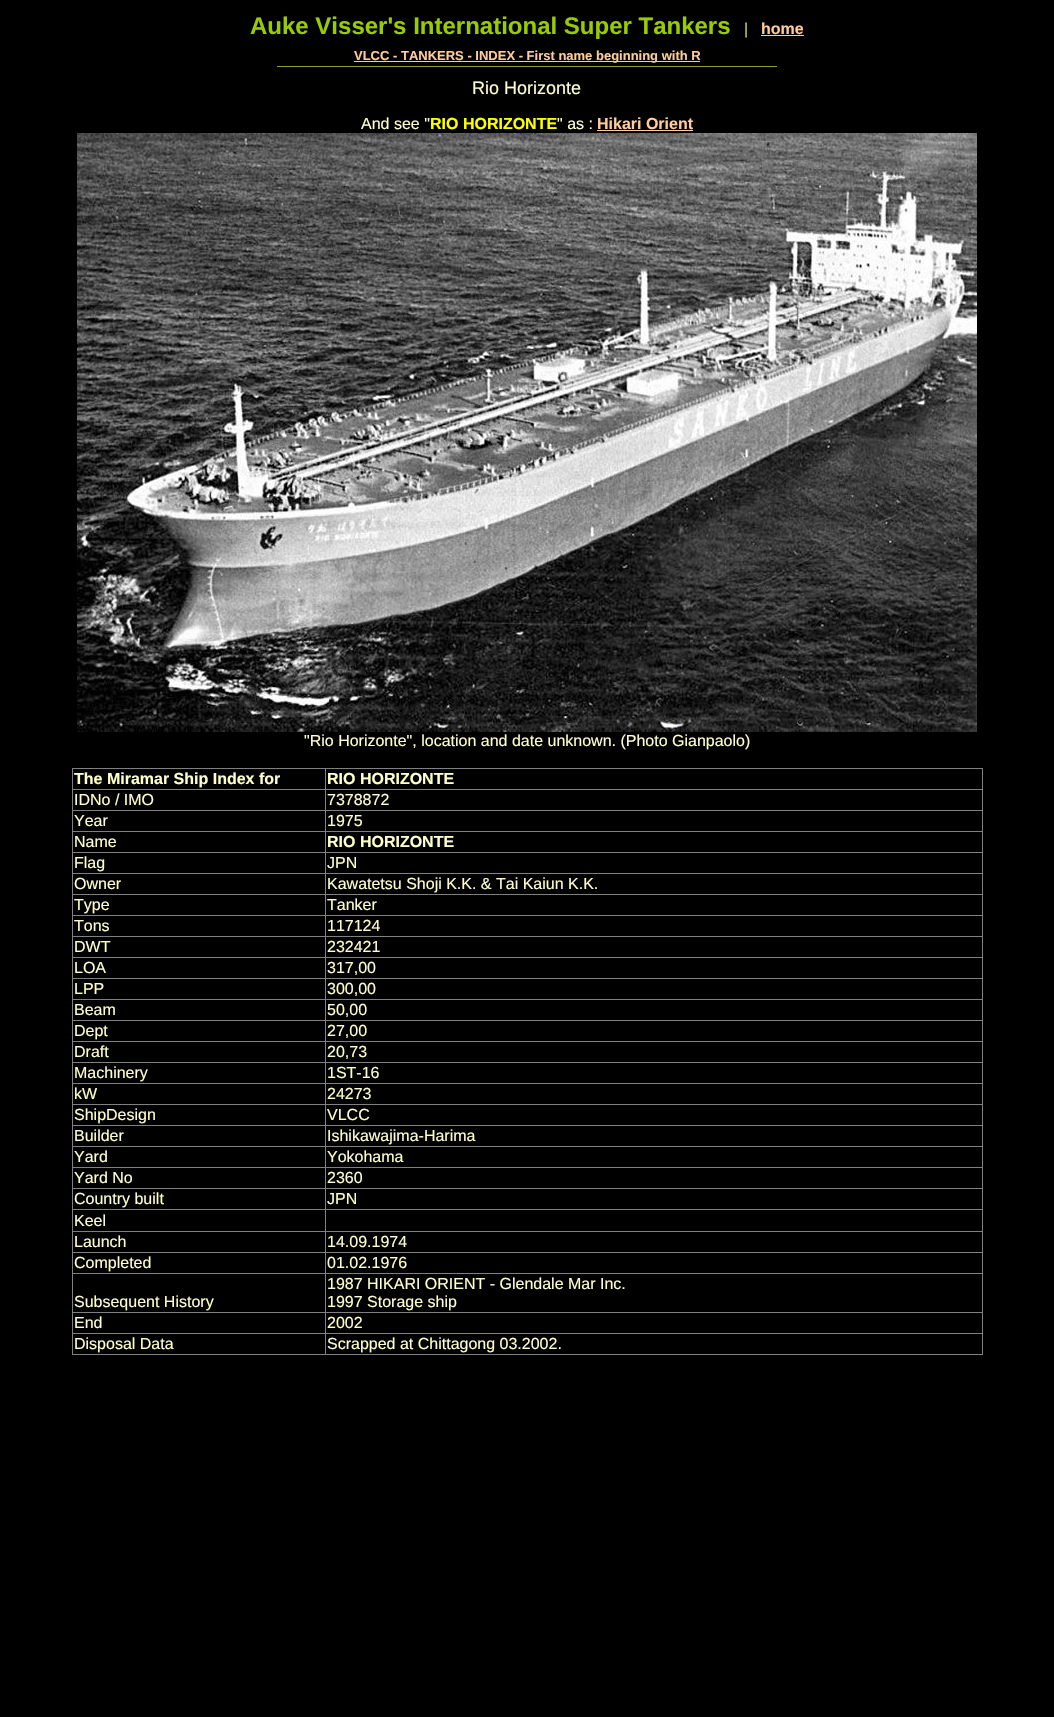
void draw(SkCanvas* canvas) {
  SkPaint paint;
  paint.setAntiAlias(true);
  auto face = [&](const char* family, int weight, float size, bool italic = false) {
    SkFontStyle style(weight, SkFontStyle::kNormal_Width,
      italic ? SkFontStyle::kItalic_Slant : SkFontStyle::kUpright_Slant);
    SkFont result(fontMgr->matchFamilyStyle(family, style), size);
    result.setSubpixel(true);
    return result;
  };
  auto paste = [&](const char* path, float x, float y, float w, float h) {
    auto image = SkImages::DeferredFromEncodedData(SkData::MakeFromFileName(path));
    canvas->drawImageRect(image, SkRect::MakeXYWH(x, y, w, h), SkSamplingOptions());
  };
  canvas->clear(0xff000000);
  {
    const struct { float x, y, w, h; SkColor color; } items[] = {
      {761, 35, 43, 1, 0xffffcc99},
      {354, 61, 346, 1, 0xffffcc99},
      {277, 66, 500, 1, 0xff999933},
      {597, 130, 96, 1, 0xffffcc99},
    };
    for (auto [x, y, w, h, color] : items) {
      paint.setColor(color);
      canvas->drawRect(SkRect::MakeXYWH(x, y, w, h), paint);
    }
  }
  paste("img/1.png", 77, 133, 900, 599);
  {
    const struct { float x, y, w, h; SkColor color; } items[] = {
      {72, 768, 911, 1, 0xff808080},
      {982, 768, 1, 587, 0xff808080},
      {72, 1354, 911, 1, 0xff808080},
      {72, 768, 1, 587, 0xff808080},
      {325, 789, 658, 1, 0xff808080},
      {325, 810, 658, 1, 0xff808080},
      {325, 831, 658, 1, 0xff808080},
      {325, 852, 658, 1, 0xff808080},
      {325, 873, 658, 1, 0xff808080},
      {325, 894, 658, 1, 0xff808080},
      {325, 915, 658, 1, 0xff808080},
      {325, 936, 658, 1, 0xff808080},
      {325, 957, 658, 1, 0xff808080},
      {325, 978, 658, 1, 0xff808080},
      {325, 999, 658, 1, 0xff808080},
      {325, 1020, 658, 1, 0xff808080},
      {325, 1041, 658, 1, 0xff808080},
      {325, 1062, 658, 1, 0xff808080},
      {325, 1083, 658, 1, 0xff808080},
      {325, 1104, 658, 1, 0xff808080},
      {325, 1125, 658, 1, 0xff808080},
      {325, 1146, 658, 1, 0xff808080},
      {325, 1167, 658, 1, 0xff808080},
      {325, 1188, 658, 1, 0xff808080},
      {325, 1209, 658, 1, 0xff808080},
      {325, 1231, 658, 1, 0xff808080},
      {325, 1252, 658, 1, 0xff808080},
      {325, 1273, 658, 1, 0xff808080},
      {325, 1312, 658, 1, 0xff808080},
      {325, 1333, 658, 1, 0xff808080},
      {325, 1333, 1, 22, 0xff808080},
      {72, 1333, 254, 1, 0xff808080},
      {325, 1312, 1, 22, 0xff808080},
      {72, 1312, 254, 1, 0xff808080},
      {325, 1273, 1, 40, 0xff808080},
      {72, 1273, 254, 1, 0xff808080},
      {325, 1252, 1, 22, 0xff808080},
      {72, 1252, 254, 1, 0xff808080},
      {325, 1231, 1, 22, 0xff808080},
      {72, 1231, 254, 1, 0xff808080},
      {325, 1209, 1, 23, 0xff808080},
      {72, 1209, 254, 1, 0xff808080},
      {325, 1188, 1, 22, 0xff808080},
      {72, 1188, 254, 1, 0xff808080},
      {325, 1167, 1, 22, 0xff808080},
      {72, 1167, 254, 1, 0xff808080},
      {325, 1146, 1, 22, 0xff808080},
      {72, 1146, 254, 1, 0xff808080},
      {325, 1125, 1, 22, 0xff808080},
      {72, 1125, 254, 1, 0xff808080},
      {325, 1104, 1, 22, 0xff808080},
      {72, 1104, 254, 1, 0xff808080},
      {325, 1083, 1, 22, 0xff808080},
      {72, 1083, 254, 1, 0xff808080},
      {325, 1062, 1, 22, 0xff808080},
      {72, 1062, 254, 1, 0xff808080},
      {325, 1041, 1, 22, 0xff808080},
      {72, 1041, 254, 1, 0xff808080},
      {325, 1020, 1, 22, 0xff808080},
      {72, 1020, 254, 1, 0xff808080},
      {325, 999, 1, 22, 0xff808080},
      {72, 999, 254, 1, 0xff808080},
      {325, 978, 1, 22, 0xff808080},
      {72, 978, 254, 1, 0xff808080},
      {325, 957, 1, 22, 0xff808080},
      {72, 957, 254, 1, 0xff808080},
      {325, 936, 1, 22, 0xff808080},
      {72, 936, 254, 1, 0xff808080},
      {325, 915, 1, 22, 0xff808080},
      {72, 915, 254, 1, 0xff808080},
      {325, 894, 1, 22, 0xff808080},
      {72, 894, 254, 1, 0xff808080},
      {325, 873, 1, 22, 0xff808080},
      {72, 873, 254, 1, 0xff808080},
      {325, 852, 1, 22, 0xff808080},
      {72, 852, 254, 1, 0xff808080},
      {325, 831, 1, 22, 0xff808080},
      {72, 831, 254, 1, 0xff808080},
      {325, 810, 1, 22, 0xff808080},
      {72, 810, 254, 1, 0xff808080},
      {325, 789, 1, 22, 0xff808080},
      {72, 789, 254, 1, 0xff808080},
      {325, 768, 1, 22, 0xff808080},
    };
    for (auto [x, y, w, h, color] : items) {
      paint.setColor(color);
      canvas->drawRect(SkRect::MakeXYWH(x, y, w, h), paint);
    }
  }
  auto f0 = face("Liberation Sans", 700, 24);
  paint.setColor(0xff99cc00);
  canvas->drawString("Auke Visser's International Super Tankers", 250, 34, f0, paint);
  auto f1 = face("Liberation Sans", 400, 16);
  paint.setColor(0xffcccc66);
  canvas->drawString("|", 744, 34, f1, paint);
  auto f2 = face("Liberation Sans", 700, 16);
  paint.setColor(0xffffcc99);
  canvas->drawString("home", 761, 34, f2, paint);
  auto f3 = face("Liberation Sans", 700, 13);
  canvas->drawString("VLCC - TANKERS - INDEX - First name beginning with R", 354, 60, f3, paint);
  auto f4 = face("Liberation Sans", 400, 18);
  paint.setColor(0xffffffcc);
  canvas->drawString("Rio Horizonte", 472, 94, f4, paint);
  canvas->drawString("And see \"", 361, 129, f1, paint);
  paint.setColor(0xffffff00);
  canvas->drawString("RIO HORIZONTE", 430, 129, f2, paint);
  paint.setColor(0xffffffcc);
  canvas->drawString("\" as :", 557, 129, f1, paint);
  paint.setColor(0xffffcc99);
  canvas->drawString("Hikari Orient", 597, 129, f2, paint);
  paint.setColor(0xffffffcc);
  canvas->drawString("\"Rio Horizonte\", location and date unknown. (Photo Gianpaolo)", 304, 746, f1, paint);
  canvas->drawString("The Miramar Ship Index for", 74, 784, f2, paint);
  canvas->drawString("RIO HORIZONTE", 327, 784, f2, paint);
  {
    const struct { const char* s; float x, y; } items[] = {
      {"IDNo / IMO", 74, 805},
      {"7378872", 327, 805},
      {"Year", 74, 826},
      {"1975", 327, 826},
      {"Name", 74, 847},
    };
    for (auto [s, x, y] : items) {
      canvas->drawString(s, x, y, f1, paint);
    }
  }
  canvas->drawString("RIO HORIZONTE", 327, 847, f2, paint);
  {
    const struct { const char* s; float x, y; } items[] = {
      {"Flag", 74, 868},
      {"JPN", 327, 868},
      {"Owner", 74, 889},
      {"Kawatetsu Shoji K.K. & Tai Kaiun K.K.", 327, 889},
      {"Type", 74, 910},
      {"Tanker", 327, 910},
      {"Tons", 74, 931},
      {"117124", 327, 931},
      {"DWT", 74, 952},
      {"232421", 327, 952},
      {"LOA", 74, 973},
      {"317,00", 327, 973},
      {"LPP", 74, 994},
      {"300,00", 327, 994},
      {"Beam", 74, 1015},
      {"50,00", 327, 1015},
      {"Dept", 74, 1036},
      {"27,00", 327, 1036},
      {"Draft", 74, 1057},
      {"20,73", 327, 1057},
      {"Machinery", 74, 1078},
      {"1ST-16", 327, 1078},
      {"kW", 74, 1099},
      {"24273", 327, 1099},
      {"ShipDesign", 74, 1120},
      {"VLCC", 327, 1120},
      {"Builder", 74, 1141},
      {"Ishikawajima-Harima", 327, 1141},
      {"Yard", 74, 1162},
      {"Yokohama", 327, 1162},
      {"Yard No", 74, 1183},
      {"2360", 327, 1183},
      {"Country built", 74, 1204},
      {"JPN", 327, 1204},
      {"Keel", 74, 1226},
      {"Launch", 74, 1247},
      {"14.09.1974", 327, 1247},
      {"Completed", 74, 1268},
      {"01.02.1976", 327, 1268},
      {"Subsequent History", 74, 1307},
      {"1987 HIKARI ORIENT - Glendale Mar Inc.", 327, 1289},
      {"1997 Storage ship", 327, 1307},
      {"End", 74, 1328},
      {"2002", 327, 1328},
      {"Disposal Data", 74, 1349},
      {"Scrapped at Chittagong 03.2002.", 327, 1349},
    };
    for (auto [s, x, y] : items) {
      canvas->drawString(s, x, y, f1, paint);
    }
  }
}
